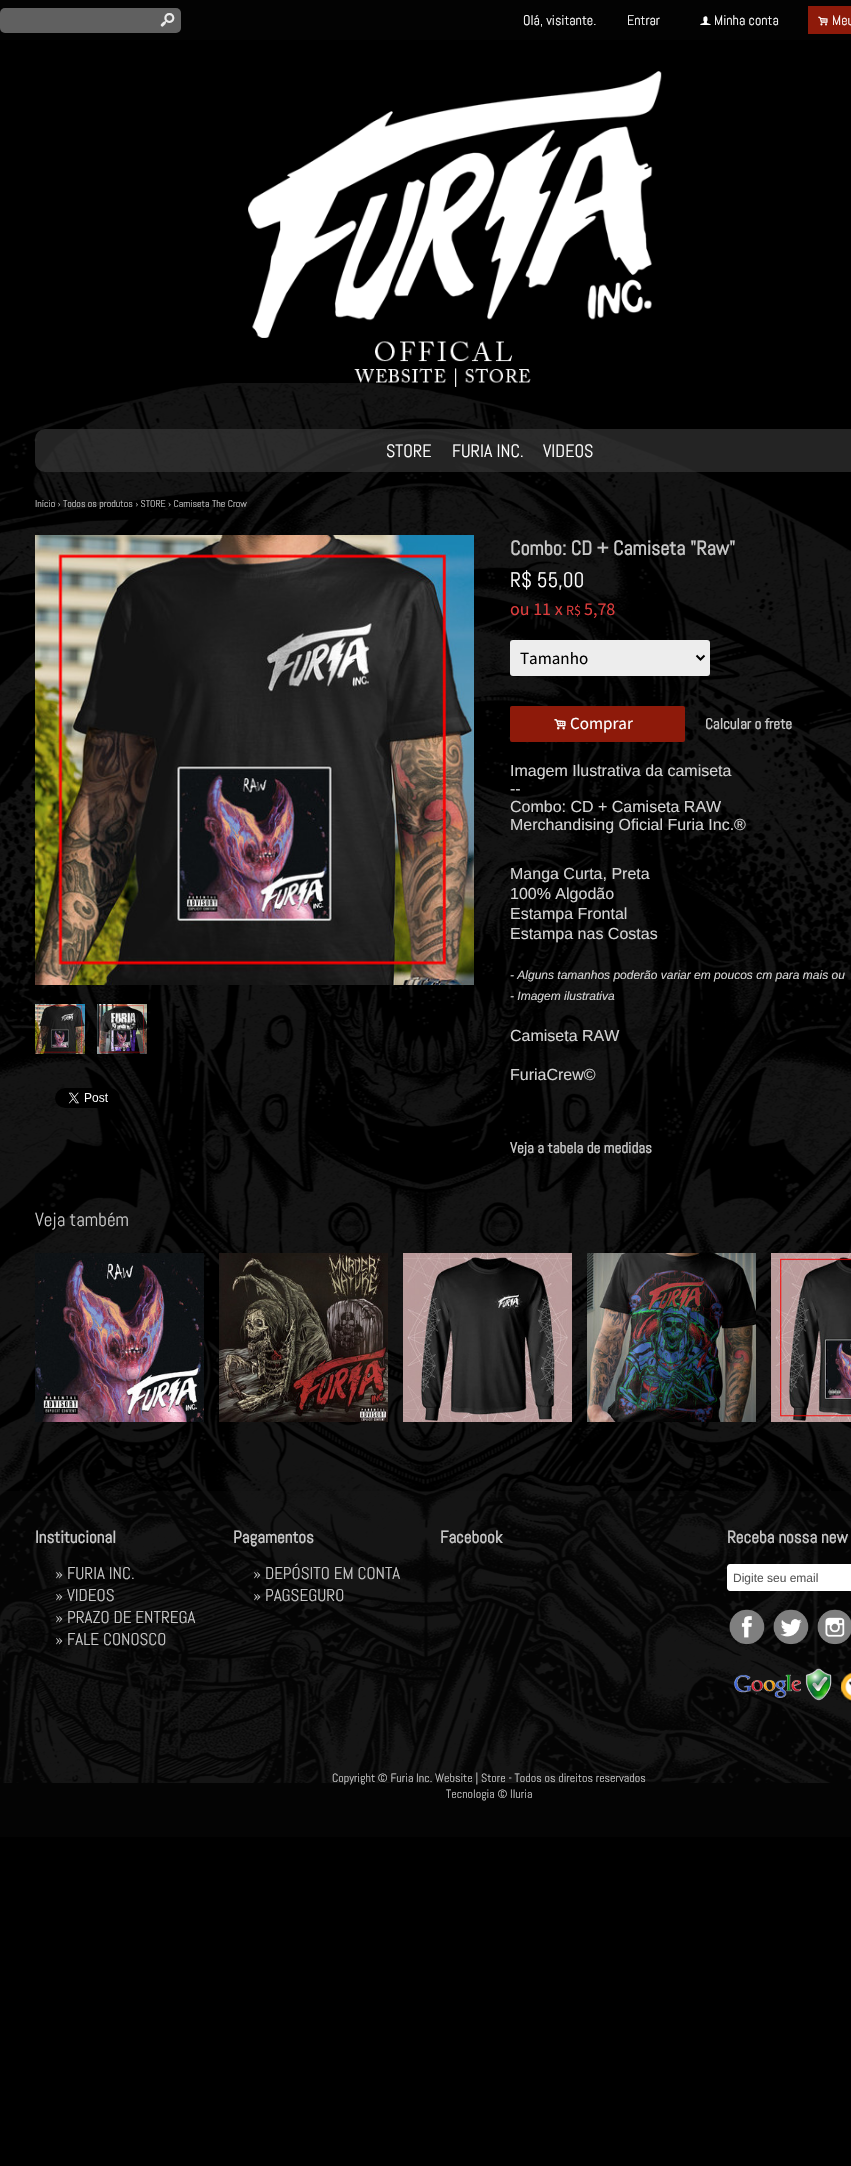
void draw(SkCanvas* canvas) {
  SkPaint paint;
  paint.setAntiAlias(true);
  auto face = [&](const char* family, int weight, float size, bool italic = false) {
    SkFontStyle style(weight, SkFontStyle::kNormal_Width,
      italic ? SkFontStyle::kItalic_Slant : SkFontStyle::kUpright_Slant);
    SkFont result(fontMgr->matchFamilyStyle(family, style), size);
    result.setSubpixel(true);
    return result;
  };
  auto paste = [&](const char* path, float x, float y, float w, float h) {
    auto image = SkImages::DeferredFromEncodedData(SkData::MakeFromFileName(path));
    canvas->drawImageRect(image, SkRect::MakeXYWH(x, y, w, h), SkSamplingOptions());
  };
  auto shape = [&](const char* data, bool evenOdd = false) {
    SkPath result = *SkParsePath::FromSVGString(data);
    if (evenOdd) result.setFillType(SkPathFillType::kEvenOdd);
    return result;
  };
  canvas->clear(0xff000000);
  paste("img/1.png", 0, 383, 851, 1400);
  paint.setColor(0xff030303);
  canvas->drawRect(SkRect::MakeXYWH(0, 0, 851, 40), paint);
  paint.setColor(0xff606060);
  canvas->drawRoundRect(SkRect::MakeXYWH(0, 8, 181, 25), 5, 5, paint);
  paint.setColor(0xff8e1a0a);
  canvas->drawRect(SkRect::MakeXYWH(808, 6, 43, 28), paint);
  paste("img/2.png", 248, 71, 414, 316);
  paint.setColor(0xad353535);
  canvas->drawRoundRect(SkRect::MakeXYWH(35, 429, 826, 43), 10, 10, paint);
  paste("img/3.png", 35, 535, 439, 450);
  paste("img/4.png", 35, 1004, 50, 50);
  paste("img/5.png", 97, 1004, 50, 50);
  paste("img/6.png", 55, 1088, 65, 20);
  paint.setColor(0xffededed);
  canvas->drawRoundRect(SkRect::MakeXYWH(510, 640, 200, 36), 3, 3, paint);
  paint.setStroke(true);
  paint.setStrokeWidth(2);
  paint.setColor(0xff000000);
  canvas->drawPath(shape("M696.5 655.5L700.5 659.5L704.5 655.5"), paint);
  paint.setStroke(false);
  paint.setColor(0xff8e1a0a);
  canvas->drawRoundRect(SkRect::MakeXYWH(510, 706, 175, 36), 2, 2, paint);
  paste("img/7.png", 35, 1253, 169, 169);
  paste("img/8.png", 219, 1253, 169, 169);
  paste("img/9.png", 403, 1253, 169, 169);
  paste("img/10.png", 587, 1253, 169, 169);
  paste("img/11.png", 771, 1253, 80, 169);
  paint.setColor(0x261a1a1a);
  canvas->drawRect(SkRect::MakeXYWH(0, 1491, 851, 346), paint);
  paint.setColor(0xffffffff);
  canvas->drawPath(shape("M730 1564H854V1591H730C728.5 1591 727 1589.5 727 1588V1567C727 1565.5 728.5 1564 730 1564Z"), paint);
  paste("img/12.png", 729, 1609, 36, 36);
  paste("img/13.png", 773, 1609, 36, 36);
  paste("img/14.png", 817, 1609, 34, 36);
  paste("img/15.png", 734, 1668, 98, 33);
  paste("img/16.png", 841, 1672, 10, 29);
  auto f0 = face("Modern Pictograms", 400, 22);
  paint.setColor(0xffececec);
  canvas->drawString("s", 160, 26, f0, paint);
  auto f1 = face("Abel", 400, 14);
  paint.setColor(0xffffffff);
  canvas->drawString("Olá, visitante.", 523, 25, f1, paint);
  canvas->drawString("Entrar", 627, 25, f1, paint);
  auto f2 = face("Modern Pictograms", 400, 14);
  canvas->drawString("f", 700, 25, f2, paint);
  canvas->drawString("Minha conta", 714, 25, f1, paint);
  canvas->drawString(".", 818, 25, f2, paint);
  canvas->drawString("Meu", 832, 25, f1, paint);
  auto f3 = face("Abel", 400, 18);
  {
    const struct { const char* s; float x, y; } items[] = {
      {"STORE", 386, 457},
      {"FURIA INC.", 452, 457},
      {"VIDEOS", 543, 457},
    };
    for (auto [s, x, y] : items) {
      canvas->drawString(s, x, y, f3, paint);
    }
  }
  auto f4 = face("Abel", 400, 10);
  paint.setColor(0xffc7c7c7);
  canvas->drawString("Início › Todos os produtos › STORE › Camiseta The Crow", 35, 507, f4, paint);
  auto f5 = face("Abel", 700, 20);
  canvas->drawString("Combo: CD + Camiseta \"Raw\"", 510, 555, f5, paint);
  auto f6 = face("Abel", 400, 21);
  paint.setColor(0xffffffff);
  canvas->drawString("R$ 55,00", 510, 587, f6, paint);
  auto f7 = face("Source Sans Pro", 400, 18);
  paint.setColor(0xffdc3c3c);
  canvas->drawString("ou 11 x", 510, 615, f7, paint);
  auto f8 = face("Source Sans Pro", 400, 14);
  canvas->drawString("R$", 566, 615, f8, paint);
  canvas->drawString("5,78", 584, 615, f7, paint);
  auto f9 = face("Source Sans Pro", 400, 17);
  paint.setColor(0xff000000);
  canvas->drawString("Tamanho", 520, 664, f9, paint);
  auto f10 = face("Modern Pictograms", 400, 17);
  paint.setColor(0xffffffff);
  canvas->drawString(".", 554, 729, f10, paint);
  canvas->drawString("Comprar", 570, 729, f9, paint);
  auto f11 = face("Abel", 700, 15);
  paint.setColor(0xffc7c7c7);
  canvas->drawString("Calcular o frete", 705, 729, f11, paint);
  auto f12 = face("Liberation Sans", 400, 16);
  paint.setColor(0xffd3d3d3);
  {
    const struct { const char* s; float x, y; } items[] = {
      {"Imagem Ilustrativa da camiseta", 510, 776},
      {"--", 510, 794},
      {"Combo: CD + Camiseta RAW", 510, 812},
      {"Merchandising Oficial Furia Inc.®", 510, 830},
      {"Manga Curta, Preta", 510, 879},
      {"100% Algodão", 510, 899},
      {"Estampa Frontal", 510, 919},
      {"Estampa nas Costas", 510, 939},
    };
    for (auto [s, x, y] : items) {
      canvas->drawString(s, x, y, f12, paint);
    }
  }
  auto f13 = face("Liberation Sans", 400, 12, true);
  canvas->drawString("- Alguns tamanhos poderão variar em poucos cm para mais ou", 510, 979, f13, paint);
  canvas->drawString("- Imagem ilustrativa", 510, 1000, f13, paint);
  canvas->drawString("Camiseta RAW", 510, 1041, f12, paint);
  canvas->drawString("FuriaCrew©", 510, 1080, f12, paint);
  paint.setColor(0xffc7c7c7);
  canvas->drawString("Veja a tabela de medidas", 510, 1153, f11, paint);
  auto f14 = face("Abel", 400, 19);
  canvas->drawString("Veja também", 35, 1226, f14, paint);
  auto f15 = face("Abel", 700, 17);
  canvas->drawString("Institucional", 35, 1543, f15, paint);
  auto f16 = face("Abel", 400, 17);
  {
    const struct { const char* s; float x, y; } items[] = {
      {"» FURIA INC.", 55, 1579},
      {"» VIDEOS", 55, 1601},
      {"» PRAZO DE ENTREGA", 55, 1623},
      {"» FALE CONOSCO", 55, 1645},
    };
    for (auto [s, x, y] : items) {
      canvas->drawString(s, x, y, f16, paint);
    }
  }
  canvas->drawString("Pagamentos", 233, 1543, f15, paint);
  canvas->drawString("» DEPÓSITO EM CONTA", 253, 1579, f16, paint);
  canvas->drawString("» PAGSEGURO", 253, 1601, f16, paint);
  canvas->drawString("Facebook", 440, 1543, f15, paint);
  canvas->drawString("Receba nossa new", 727, 1543, f15, paint);
  auto f17 = face("Liberation Sans", 400, 12);
  paint.setColor(0xff595959);
  canvas->drawString("Digite seu email", 733, 1582, f17, paint);
  auto f18 = face("Abel", 400, 12);
  paint.setColor(0xffc7c7c7);
  canvas->drawString("Copyright © Furia Inc. Website | Store - Todos os direitos reservados", 332, 1782, f18, paint);
  canvas->drawString("Tecnologia © Iluria", 446, 1798, f18, paint);
}
